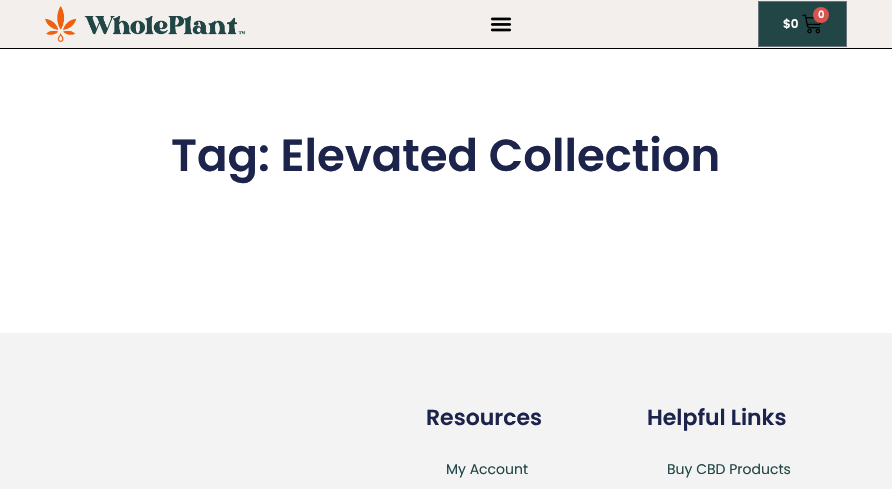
void draw(SkCanvas* canvas) {
  SkPaint paint;
  paint.setAntiAlias(true);
  auto face = [&](const char* family, int weight, float size, bool italic = false) {
    SkFontStyle style(weight, SkFontStyle::kNormal_Width,
      italic ? SkFontStyle::kItalic_Slant : SkFontStyle::kUpright_Slant);
    SkFont result(fontMgr->matchFamilyStyle(family, style), size);
    result.setSubpixel(true);
    return result;
  };
  auto paste = [&](const char* path, float x, float y, float w, float h) {
    auto image = SkImages::DeferredFromEncodedData(SkData::MakeFromFileName(path));
    canvas->drawImageRect(image, SkRect::MakeXYWH(x, y, w, h), SkSamplingOptions());
  };
  canvas->clear(0xffffffff);
  paint.setColor(0xfff2efec);
  canvas->drawRect(SkRect::MakeXYWH(0, 0, 892, 48), paint);
  paint.setColor(0xff000000);
  canvas->drawRect(SkRect::MakeXYWH(0, 48, 892, 1), paint);
  paste("img/1.png", 45, 6, 200, 36);
  paste("img/2.png", 490, 17, 22, 15);
  paint.setColor(0xff214645);
  canvas->drawRect(SkRect::MakeXYWH(758.5f, 1.5f, 88, 45), paint);
  paint.setStroke(true);
  paint.setStrokeWidth(1);
  paint.setColor(0xff69727d);
  canvas->drawRect(SkRect::MakeXYWH(758.5f, 1.5f, 88, 45), paint);
  paste("img/3.png", 802, 14, 20, 20);
  paint.setStroke(false);
  paint.setColor(0xffd9534f);
  canvas->drawCircle(821, 15, 8, paint);
  paint.setColor(0xfff3f3f3);
  canvas->drawRect(SkRect::MakeXYWH(0, 333, 892, 156), paint);
  auto f0 = face("Poppins", 600, 10);
  paint.setColor(0xffffffff);
  canvas->drawString("0", 818, 18, f0, paint);
  auto f1 = face("Poppins", 600, 12);
  canvas->drawString("$0", 783, 28, f1, paint);
  auto f2 = face("Poppins", 600, 45);
  paint.setColor(0xff1c244b);
  canvas->drawString("Tag: Elevated Collection", 171, 171, f2, paint);
  auto f3 = face("Poppins", 600, 22);
  canvas->drawString("Resources", 426, 425, f3, paint);
  auto f4 = face("Poppins", 400, 14);
  paint.setColor(0xff214645);
  canvas->drawString("My Account", 446, 474, f4, paint);
  paint.setColor(0xff1c244b);
  canvas->drawString("Helpful Links", 647, 425, f3, paint);
  paint.setColor(0xff214645);
  canvas->drawString("Buy CBD Products", 667, 474, f4, paint);
}
